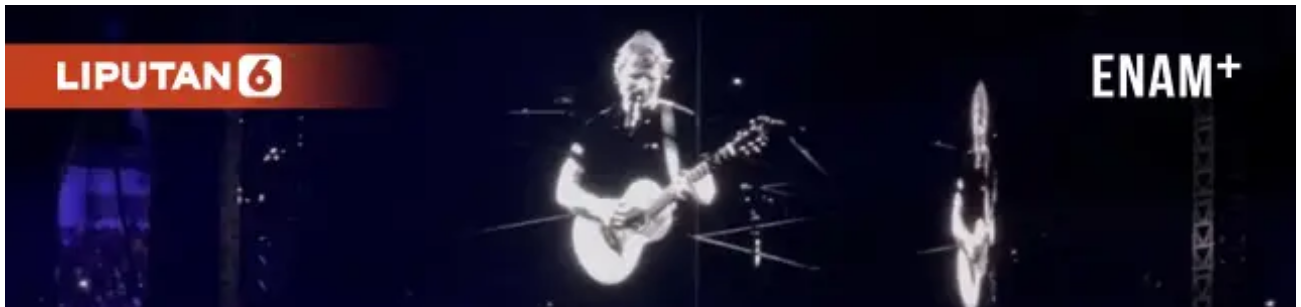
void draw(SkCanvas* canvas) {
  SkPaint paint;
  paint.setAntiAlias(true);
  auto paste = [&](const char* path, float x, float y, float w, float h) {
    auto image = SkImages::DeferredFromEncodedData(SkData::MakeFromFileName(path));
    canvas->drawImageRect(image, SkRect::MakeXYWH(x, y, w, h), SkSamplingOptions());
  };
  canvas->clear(0xffffffff);
  paste("img/1.png", 5, 5, 1291, 302);
}
